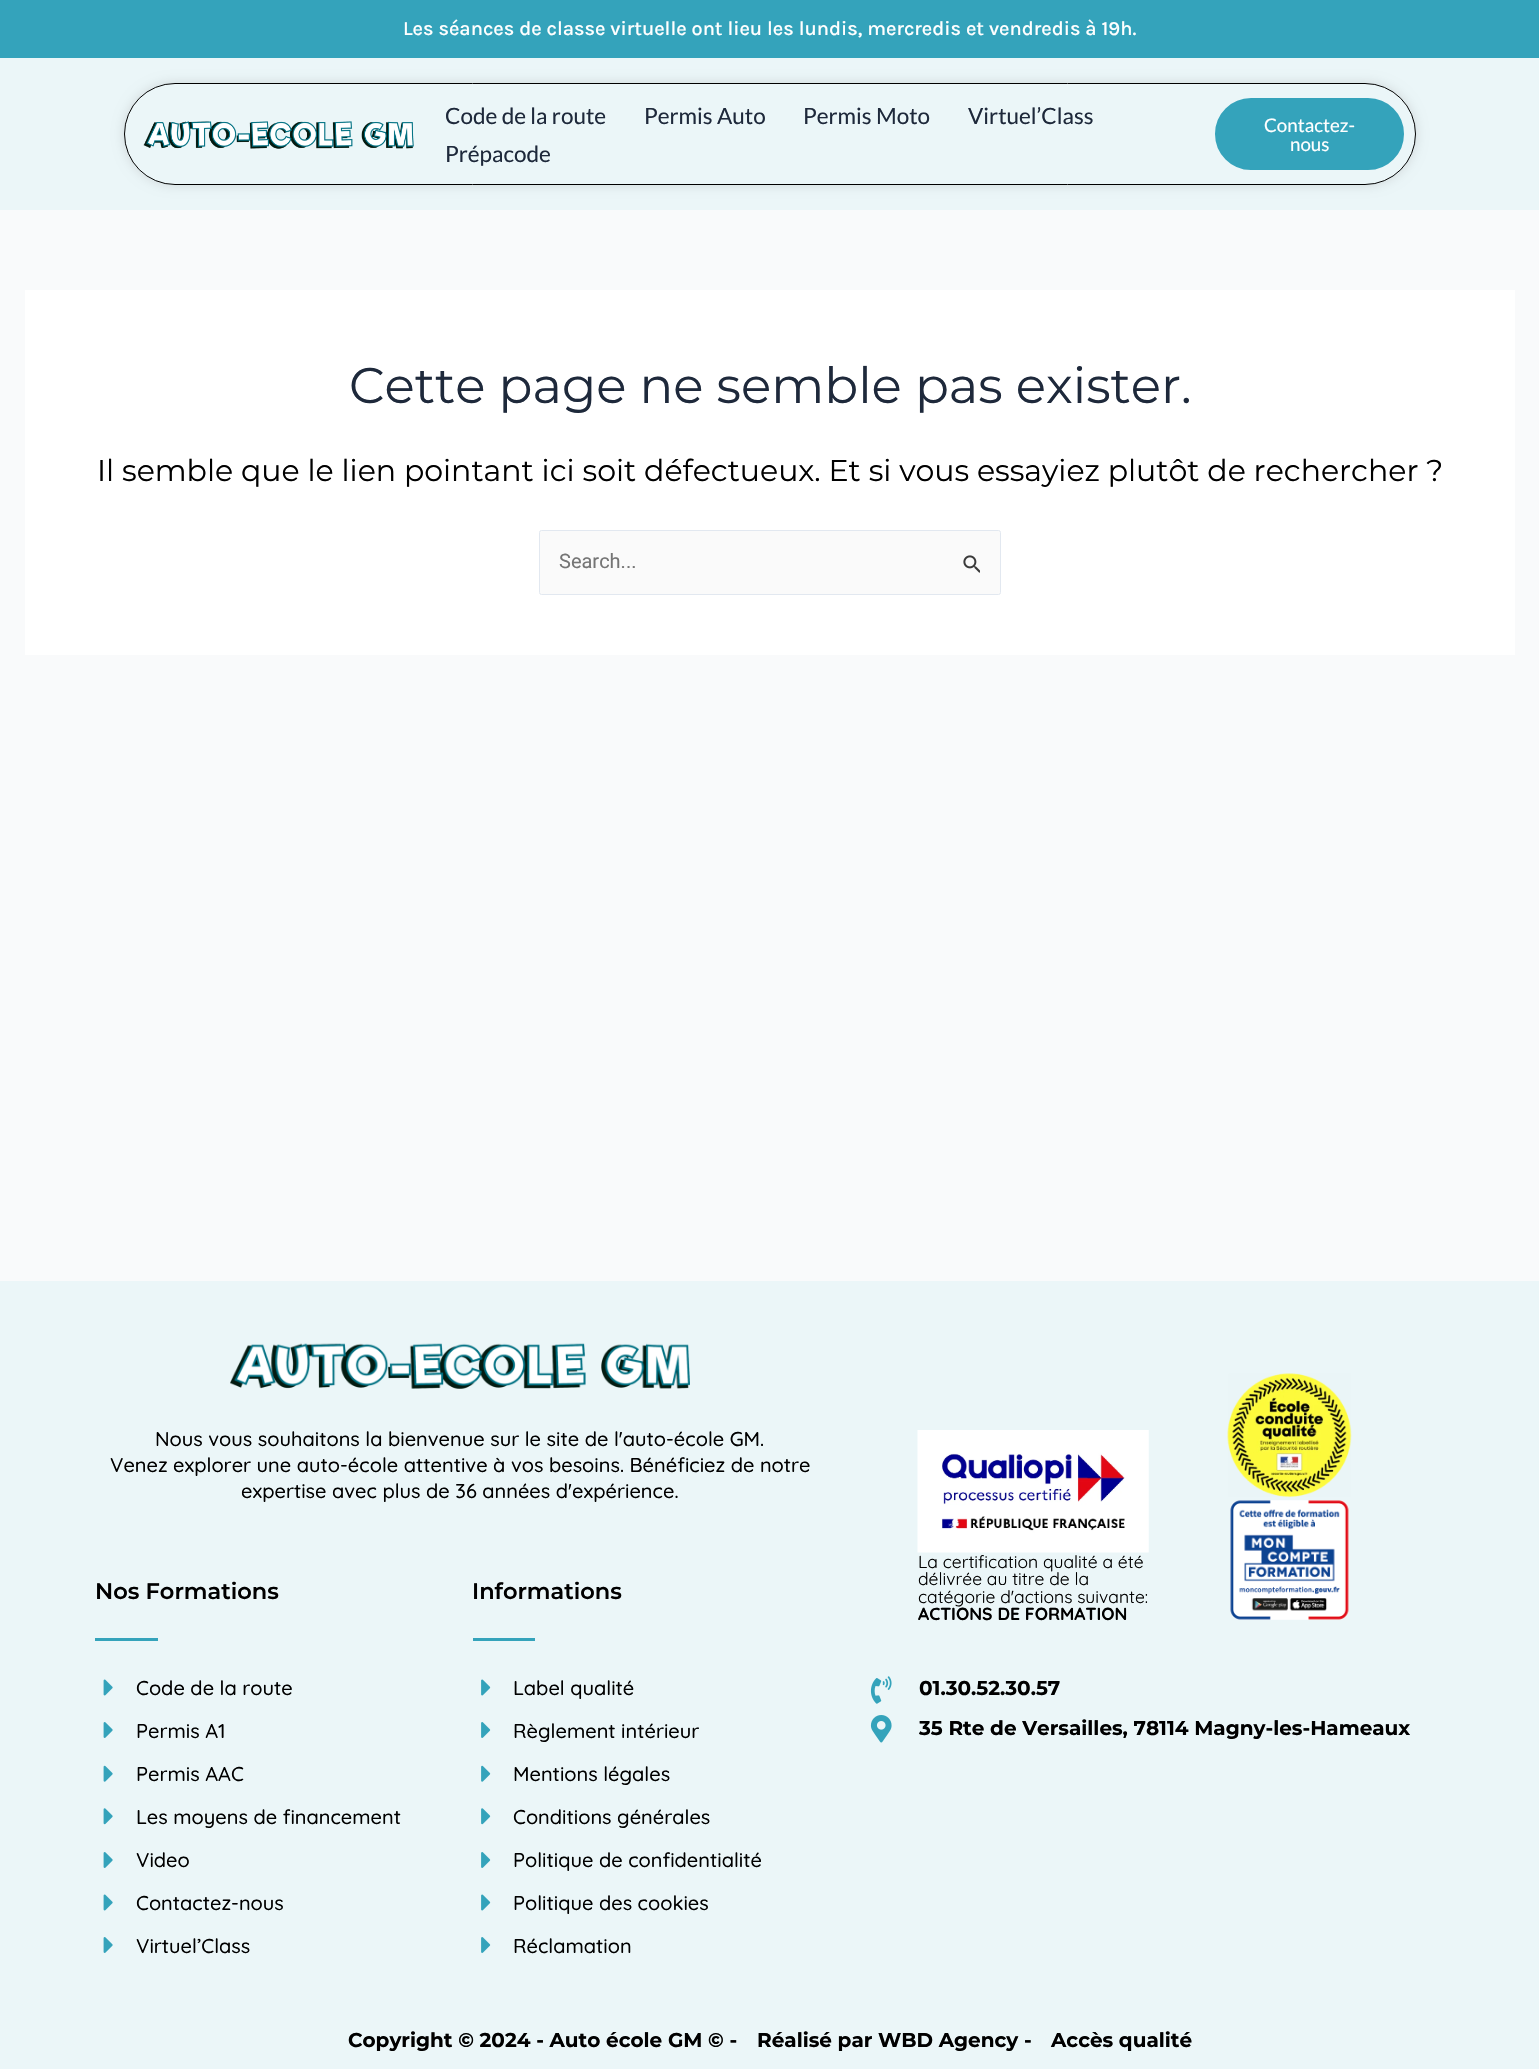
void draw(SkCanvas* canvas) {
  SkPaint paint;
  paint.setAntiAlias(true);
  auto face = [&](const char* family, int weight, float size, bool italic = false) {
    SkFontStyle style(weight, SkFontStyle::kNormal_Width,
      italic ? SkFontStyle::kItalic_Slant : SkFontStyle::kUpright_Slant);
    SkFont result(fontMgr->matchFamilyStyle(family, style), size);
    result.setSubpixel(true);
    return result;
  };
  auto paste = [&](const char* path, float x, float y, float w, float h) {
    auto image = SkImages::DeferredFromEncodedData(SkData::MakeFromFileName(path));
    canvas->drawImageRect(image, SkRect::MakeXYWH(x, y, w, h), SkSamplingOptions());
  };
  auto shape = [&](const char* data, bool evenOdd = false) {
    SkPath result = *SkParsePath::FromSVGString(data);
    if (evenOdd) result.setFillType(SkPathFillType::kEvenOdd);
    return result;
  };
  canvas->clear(0xfff9fafb);
  paint.setColor(0xff34a3bb);
  canvas->drawRect(SkRect::MakeXYWH(0, 0, 1539, 58), paint);
  paint.setColor(0xffebf6f8);
  canvas->drawRect(SkRect::MakeXYWH(0, 58, 1539, 152), paint);
  canvas->save();
  canvas->clipPath(shape("M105 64H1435V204H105ZM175 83H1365C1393 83 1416 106 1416 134C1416 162 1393 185 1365 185H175C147 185 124 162 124 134C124 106 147 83 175 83Z", true), true);
  paint.setColor(0x1f000000);
  paint.setMaskFilter(SkMaskFilter::MakeBlur(kNormal_SkBlurStyle, 6));
  canvas->drawRoundRect(SkRect::MakeXYWH(124, 83, 1292, 102), 51, 51, paint);
  paint.setMaskFilter(nullptr);
  canvas->restore();
  paint.setStroke(true);
  paint.setStrokeWidth(1);
  paint.setColor(0xff000000);
  canvas->drawRoundRect(SkRect::MakeXYWH(124.5f, 83.5f, 1291, 101), 50.5f, 50.5f, paint);
  paste("img/1.png", 143, 121, 271, 28);
  paint.setStroke(false);
  paint.setColor(0xff34a3bb);
  canvas->drawRoundRect(SkRect::MakeXYWH(1216.5f, 99.5f, 186, 69), 34.5f, 34.5f, paint);
  paint.setStroke(true);
  paint.setStrokeWidth(3);
  canvas->drawRoundRect(SkRect::MakeXYWH(1216.5f, 99.5f, 186, 69), 34.5f, 34.5f, paint);
  paint.setStroke(false);
  paint.setColor(0xffffffff);
  canvas->drawRect(SkRect::MakeXYWH(25, 290, 1490, 365), paint);
  paint.setColor(0xfffafafa);
  canvas->drawRoundRect(SkRect::MakeXYWH(539.5f, 530.5f, 461, 64), 2, 2, paint);
  paint.setStroke(true);
  paint.setStrokeWidth(1);
  paint.setColor(0xffe2e8f0);
  canvas->drawRoundRect(SkRect::MakeXYWH(539.5f, 530.5f, 461, 64), 2, 2, paint);
  paste("img/2.png", 963, 555, 17, 18);
  paint.setStroke(false);
  paint.setColor(0xffebf6f8);
  canvas->drawRect(SkRect::MakeXYWH(0, 1281, 1539, 788), paint);
  paste("img/3.png", 230, 1343, 460, 46);
  paint.setColor(0xff34a3bb);
  canvas->drawRect(SkRect::MakeXYWH(95, 1638, 63, 3), paint);
  paste("img/4.png", 103, 1679, 10, 17);
  paste("img/5.png", 103, 1722, 10, 16);
  paste("img/6.png", 103, 1765, 10, 17);
  paste("img/7.png", 103, 1808, 10, 17);
  paste("img/5.png", 103, 1852, 10, 16);
  paste("img/4.png", 103, 1894, 10, 17);
  paste("img/5.png", 103, 1937, 10, 16);
  canvas->drawRect(SkRect::MakeXYWH(473, 1638, 62, 3), paint);
  paste("img/8.png", 481, 1679, 10, 17);
  paste("img/9.png", 481, 1722, 10, 16);
  paste("img/10.png", 481, 1765, 10, 17);
  paste("img/11.png", 481, 1808, 10, 17);
  paste("img/9.png", 481, 1852, 10, 16);
  paste("img/8.png", 481, 1894, 10, 17);
  paste("img/9.png", 481, 1937, 10, 16);
  paste("img/12.png", 917, 1430, 232, 123);
  paste("img/13.png", 1227, 1373, 125, 125);
  paste("img/14.png", 1230, 1500, 119, 120);
  paste("img/15.png", 870, 1676, 22, 28);
  paste("img/16.png", 870, 1715, 22, 28);
  auto f0 = face("Karla", 500, 20);
  paint.setColor(0xffffffff);
  canvas->drawString("Les séances de classe virtuelle ont lieu les lundis, mercredis et vendredis à 19h.", 403, 35, f0, paint);
  auto f1 = face("Lato", 400, 22.5f);
  paint.setColor(0xff1e293b);
  {
    const struct { const char* s; float x, y; } items[] = {
      {"Code de la route", 445, 124},
      {"Permis Auto", 644, 124},
      {"Permis Moto", 803, 124},
      {"Virtuel’Class", 968, 124},
      {"Prépacode", 445, 162},
    };
    for (auto [s, x, y] : items) {
      canvas->drawString(s, x, y, f1, paint);
    }
  }
  auto f2 = face("Lato", 400, 18.75f);
  paint.setColor(0xffffffff);
  canvas->drawString("Contactez-", 1264, 132, f2, paint);
  canvas->drawString("nous", 1290, 151, f2, paint);
  auto f3 = face("Montserrat", 400, 50);
  paint.setColor(0xff1e293b);
  canvas->drawString("Cette page ne semble pas exister.", 349, 403, f3, paint);
  auto f4 = face("Montserrat", 400, 30);
  paint.setColor(0xff000000);
  canvas->drawString("Il semble que le lien pointant ici soit défectueux. Et si vous essayiez plutôt de rechercher ?", 97, 481, f4, paint);
  auto f5 = face("Roboto", 400, 20);
  paint.setColor(0xff757575);
  canvas->drawString("Search...", 559, 568, f5, paint);
  auto f6 = face("Quicksand", 500, 20);
  paint.setColor(0xff000000);
  {
    const struct { const char* s; float x, y; } items[] = {
      {"Nous vous souhaitons la bienvenue sur le site de l'auto-école GM.", 155, 1446},
      {"Venez explorer une auto-école attentive à vos besoins. Bénéficiez de notre", 110, 1472},
      {"expertise avec plus de 36 années d'expérience.", 241, 1498},
    };
    for (auto [s, x, y] : items) {
      canvas->drawString(s, x, y, f6, paint);
    }
  }
  auto f7 = face("Montserrat", 600, 22.5f);
  canvas->drawString("Nos Formations", 95, 1599, f7, paint);
  {
    const struct { const char* s; float x, y; } items[] = {
      {"Code de la route", 136, 1695},
      {"Permis A1", 136, 1738},
      {"Permis AAC", 136, 1781},
      {"Les moyens de financement", 136, 1824},
      {"Video", 136, 1867},
      {"Contactez-nous", 136, 1910},
      {"Virtuel’Class", 136, 1953},
    };
    for (auto [s, x, y] : items) {
      canvas->drawString(s, x, y, f6, paint);
    }
  }
  canvas->drawString("Informations", 472, 1599, f7, paint);
  {
    const struct { const char* s; float x, y; } items[] = {
      {"Label qualité", 513, 1695},
      {"Règlement intérieur", 513, 1738},
      {"Mentions légales", 513, 1781},
      {"Conditions générales", 513, 1824},
      {"Politique de confidentialité", 513, 1867},
      {"Politique des cookies", 513, 1910},
      {"Réclamation", 513, 1953},
    };
    for (auto [s, x, y] : items) {
      canvas->drawString(s, x, y, f6, paint);
    }
  }
  auto f8 = face("Quicksand", 400, 17.5f);
  {
    const struct { const char* s; float x, y; } items[] = {
      {"La certification qualité a été", 918, 1568},
      {"délivrée au titre de la", 918, 1585},
      {"catégorie d'actions suivante:", 918, 1603},
    };
    for (auto [s, x, y] : items) {
      canvas->drawString(s, x, y, f8, paint);
    }
  }
  auto f9 = face("Quicksand", 700, 17.5f);
  canvas->drawString("ACTIONS DE FORMATION", 918, 1620, f9, paint);
  auto f10 = face("Montserrat", 700, 20);
  {
    const struct { const char* s; float x, y; } items[] = {
      {"01.30.52.30.57", 919, 1695},
      {"35 Rte de Versailles, 78114 Magny-les-Hameaux", 919, 1735},
      {"Copyright © 2024 - Auto école GM © -", 348, 2047},
      {"Réalisé par WBD Agency -", 757, 2047},
      {"Accès qualité", 1051, 2047},
    };
    for (auto [s, x, y] : items) {
      canvas->drawString(s, x, y, f10, paint);
    }
  }
}
